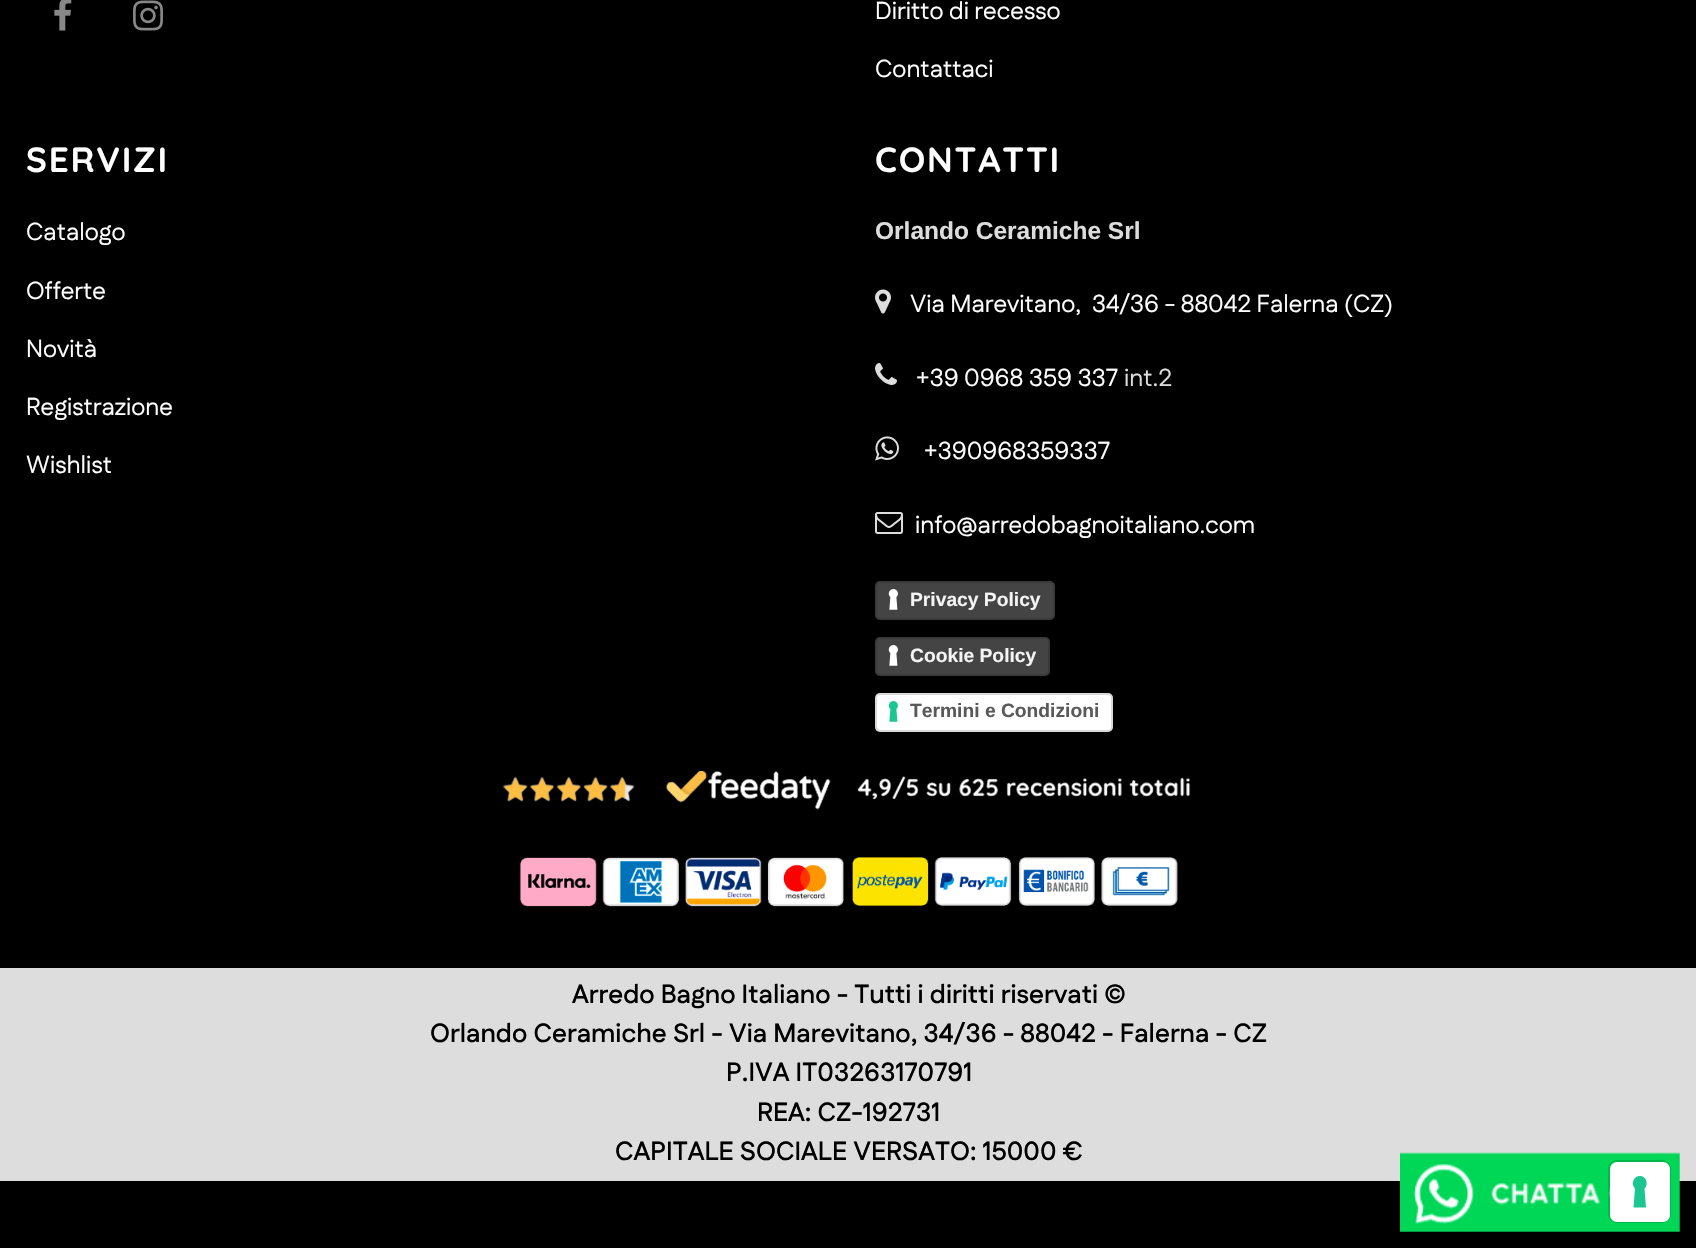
void draw(SkCanvas* canvas) {
  SkPaint paint;
  paint.setAntiAlias(true);
  auto face = [&](const char* family, int weight, float size, bool italic = false) {
    SkFontStyle style(weight, SkFontStyle::kNormal_Width,
      italic ? SkFontStyle::kItalic_Slant : SkFontStyle::kUpright_Slant);
    SkFont result(fontMgr->matchFamilyStyle(family, style), size);
    result.setSubpixel(true);
    return result;
  };
  auto writeSpaced = [&](const char* s, float x, float y, const SkFont& font, const SkPaint& ink, float letter, float word) {
    std::vector<SkGlyphID> glyphs(font.countText(s, strlen(s), SkTextEncoding::kUTF8));
    std::vector<float> xs(glyphs.size());
    font.textToGlyphs(s, strlen(s), SkTextEncoding::kUTF8, glyphs);
    font.getXPos(glyphs, xs, x);
    float extra = 0;
    for (size_t i = 0; i < glyphs.size(); i++) {
      xs[i] += extra;
      extra += letter + word * (glyphs[i] == font.unicharToGlyph(' '));
    }
    canvas->drawTextBlob(SkTextBlob::MakeFromPosHGlyphs(glyphs, xs, y, font), 0, 0, ink);
  };
  auto paste = [&](const char* path, float x, float y, float w, float h) {
    auto image = SkImages::DeferredFromEncodedData(SkData::MakeFromFileName(path));
    canvas->drawImageRect(image, SkRect::MakeXYWH(x, y, w, h), SkSamplingOptions());
  };
  auto shape = [&](const char* data, bool evenOdd = false) {
    SkPath result = *SkParsePath::FromSVGString(data);
    if (evenOdd) result.setFillType(SkPathFillType::kEvenOdd);
    return result;
  };
  canvas->clear(0xff000000);
  paste("img/1.png", 54, 0, 18, 31);
  paste("img/2.png", 133, 0, 30, 31);
  paste("img/3.png", 875, 289, 16, 25);
  paste("img/4.png", 875, 363, 22, 22);
  paste("img/5.png", 875, 436, 24, 25);
  paste("img/6.png", 875, 512, 28, 22);
  paint.setColor(0xff444444);
  canvas->drawRoundRect(SkRect::MakeXYWH(875, 581, 180, 39), 5, 5, paint);
  paste("img/7.png", 888, 589, 10, 21);
  paint.setStroke(true);
  paint.setStrokeWidth(2);
  paint.setColor(0x26000000);
  canvas->drawRoundRect(SkRect::MakeXYWH(876, 582, 178, 37), 4, 4, paint);
  paint.setStroke(false);
  paint.setColor(0xff444444);
  canvas->drawRoundRect(SkRect::MakeXYWH(875, 637, 175, 39), 5, 5, paint);
  paste("img/7.png", 888, 645, 10, 21);
  paint.setStroke(true);
  paint.setColor(0x26000000);
  canvas->drawRoundRect(SkRect::MakeXYWH(876, 638, 173, 37), 4, 4, paint);
  paint.setStroke(false);
  paint.setColor(0xffffffff);
  canvas->drawRoundRect(SkRect::MakeXYWH(875, 693, 238, 39), 5, 5, paint);
  paste("img/8.png", 888, 701, 10, 21);
  paint.setStroke(true);
  paint.setColor(0x26000000);
  canvas->drawRoundRect(SkRect::MakeXYWH(876, 694, 236, 37), 4, 4, paint);
  paste("img/9.png", 503, 771, 688, 39);
  paste("img/10.png", 520, 857, 658, 50);
  paint.setStroke(false);
  paint.setColor(0xffdddddd);
  canvas->drawRect(SkRect::MakeXYWH(0, 968, 1696, 213), paint);
  paste("img/11.png", 1400, 1152, 280, 80);
  paint.setStroke(true);
  paint.setColor(0x26000000);
  canvas->drawRoundRect(SkRect::MakeXYWH(1609, 1161, 61, 61), 8, 8, paint);
  paint.setStroke(false);
  paint.setColor(0xffffffff);
  canvas->drawRoundRect(SkRect::MakeXYWH(1610, 1162, 60, 60), 7, 7, paint);
  paint.setColor(0xff1cc691);
  canvas->drawPath(shape("M1640 1176C1646 1176 1649 1184 1644.5 1188.5L1646 1207.5H1633.5L1635 1188.5C1630.5 1184 1633.5 1176 1640 1176Z", true), paint);
  auto f0 = face("Fustat", 400, 24.5f);
  paint.setColor(0xffffffff);
  canvas->drawString("Diritto di recesso", 875, 19, f0, paint);
  canvas->drawString("Contattaci", 875, 77, f0, paint);
  auto f1 = face("Quicksand", 700, 35);
  writeSpaced("SERVIZI", 26, 172, f1, paint, 1.75f, 0);
  {
    const struct { const char* s; float x, y; } items[] = {
      {"Catalogo", 26, 240},
      {"Offerte", 26, 299},
      {"Novità", 26, 357},
      {"Registrazione", 26, 415},
      {"Wishlist", 26, 473},
    };
    for (auto [s, x, y] : items) {
      canvas->drawString(s, x, y, f0, paint);
    }
  }
  writeSpaced("CONTATTI", 875, 172, f1, paint, 1.75f, 0);
  auto f2 = face("Liberation Sans", 700, 24.5f);
  paint.setColor(0xffdddddd);
  canvas->drawString("Orlando Ceramiche Srl", 875, 239, f2, paint);
  paint.setColor(0xffffffff);
  canvas->drawString("Via Marevitano,  34/36 - 88042 Falerna (CZ)", 910, 312, f0, paint);
  canvas->drawString("+39 0968 359 337", 916, 386, f0, paint);
  paint.setColor(0xffdddddd);
  canvas->drawString("int.2", 1124, 386, f0, paint);
  paint.setColor(0xffffffff);
  canvas->drawString("+390968359337", 924, 459, f0, paint);
  canvas->drawString("info@arredobagnoitaliano.com", 915, 533, f0, paint);
  auto f3 = face("Liberation Sans", 700, 19.25f);
  paint.setColor(0xfff4f4f4);
  canvas->drawString("Privacy Policy", 910, 606, f3, paint);
  canvas->drawString("Cookie Policy", 910, 662, f3, paint);
  paint.setColor(0xff595959);
  canvas->drawString("Termini e Condizioni", 910, 717, f3, paint);
  auto f4 = face("Fustat", 600, 26.25f);
  paint.setColor(0xff000000);
  {
    const struct { const char* s; float x, y; } items[] = {
      {"Arredo Bagno Italiano - Tutti i diritti riservati ©", 572, 1003},
      {"Orlando Ceramiche Srl - Via Marevitano, 34/36 - 88042 - Falerna - CZ", 430, 1042},
      {"P.IVA IT03263170791", 726, 1081},
      {"REA: CZ-192731", 757, 1121},
      {"CAPITALE SOCIALE VERSATO: 15000 €", 615, 1160},
    };
    for (auto [s, x, y] : items) {
      canvas->drawString(s, x, y, f4, paint);
    }
  }
}
